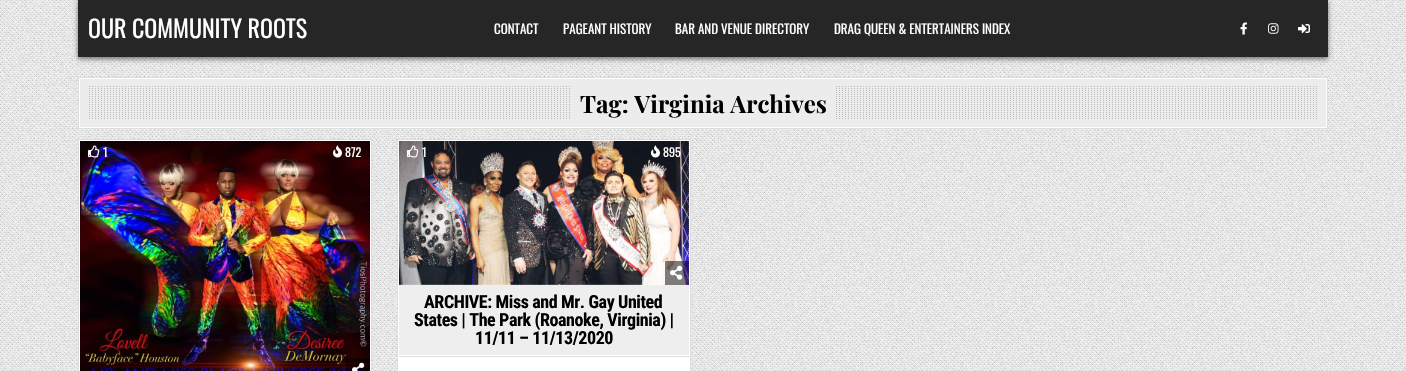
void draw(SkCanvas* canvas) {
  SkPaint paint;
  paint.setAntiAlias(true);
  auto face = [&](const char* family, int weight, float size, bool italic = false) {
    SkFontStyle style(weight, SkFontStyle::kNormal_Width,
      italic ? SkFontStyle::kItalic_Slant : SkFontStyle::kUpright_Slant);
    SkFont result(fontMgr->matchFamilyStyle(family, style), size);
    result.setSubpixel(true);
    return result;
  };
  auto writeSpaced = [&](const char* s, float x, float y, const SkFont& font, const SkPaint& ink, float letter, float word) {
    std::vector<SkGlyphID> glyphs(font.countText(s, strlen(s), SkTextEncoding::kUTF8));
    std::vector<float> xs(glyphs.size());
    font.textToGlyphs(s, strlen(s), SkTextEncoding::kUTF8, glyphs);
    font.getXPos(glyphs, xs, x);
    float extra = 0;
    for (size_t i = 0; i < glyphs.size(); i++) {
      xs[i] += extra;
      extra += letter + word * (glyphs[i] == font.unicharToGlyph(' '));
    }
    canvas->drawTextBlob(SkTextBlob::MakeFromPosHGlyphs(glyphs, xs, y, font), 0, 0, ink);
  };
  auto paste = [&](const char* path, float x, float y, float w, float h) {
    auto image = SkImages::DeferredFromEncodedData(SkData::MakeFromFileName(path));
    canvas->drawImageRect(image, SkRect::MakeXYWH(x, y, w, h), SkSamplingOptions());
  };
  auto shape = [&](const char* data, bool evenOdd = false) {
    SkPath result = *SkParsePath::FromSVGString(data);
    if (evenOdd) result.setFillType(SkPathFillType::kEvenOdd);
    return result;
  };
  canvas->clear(0xffffffff);
  paste("img/1.png", 0, 0, 1406, 371);
  paint.setColor(0x80000000);
  paint.setMaskFilter(SkMaskFilter::MakeBlur(kNormal_SkBlurStyle, 2.5f));
  canvas->drawRect(SkRect::MakeXYWH(78, 2, 1250, 57), paint);
  paint.setMaskFilter(nullptr);
  paint.setColor(0xff262626);
  canvas->drawRect(SkRect::MakeXYWH(78, 0, 1250, 57), paint);
  paste("img/2.png", 1240, 22, 7, 13);
  paste("img/3.png", 1268, 23, 11, 11);
  paste("img/4.png", 1298, 24, 12, 10);
  paint.setColor(0xffececec);
  canvas->drawRect(SkRect::MakeXYWH(80, 79, 1246, 48), paint);
  canvas->save();
  canvas->clipRect(SkRect::MakeXYWH(79, 78, 1248, 50));
  paint.setColor(0xffffffff);
  canvas->drawPath(shape("M-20-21H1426V227H-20ZM78 77H1326V127H78Z", true), paint);
  canvas->drawPath(shape("M-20-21H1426V227H-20ZM80 79H1328V129H80Z", true), paint);
  canvas->restore();
  paint.setStroke(true);
  paint.setStrokeWidth(1);
  paint.setColor(0xffdddddd);
  canvas->drawRect(SkRect::MakeXYWH(78.5f, 77.5f, 1249, 51), paint);
  paste("img/5.png", 89, 86, 1228, 33);
  paint.setStroke(false);
  paint.setColor(0xffececec);
  canvas->drawRect(SkRect::MakeXYWH(572, 86, 262, 33), paint);
  paint.setColor(0xffffffff);
  canvas->drawRect(SkRect::MakeXYWH(78.5f, 139.5f, 293, 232), paint);
  paint.setStroke(true);
  paint.setColor(0xffdddddd);
  canvas->drawRect(SkRect::MakeXYWH(78.5f, 139.5f, 293, 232), paint);
  paste("img/6.png", 80, 141, 290, 230);
  paste("img/7.png", 88, 145, 12, 13);
  paste("img/8.png", 333, 145, 9, 13);
  paint.setStroke(false);
  paint.setColor(0x80000000);
  canvas->drawRect(SkRect::MakeXYWH(346, 358, 24, 13), paint);
  paste("img/9.png", 352, 362, 13, 9);
  paint.setColor(0xffffffff);
  canvas->drawRect(SkRect::MakeXYWH(397.5f, 139.5f, 293, 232), paint);
  paint.setStroke(true);
  paint.setColor(0xffdddddd);
  canvas->drawRect(SkRect::MakeXYWH(397.5f, 139.5f, 293, 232), paint);
  paste("img/10.png", 688, 141, 1, 143);
  paste("img/11.png", 399, 141, 290, 144);
  paste("img/12.png", 407, 145, 12, 13);
  paste("img/13.png", 651, 145, 9, 13);
  paint.setStroke(false);
  paint.setColor(0x80000000);
  canvas->drawRect(SkRect::MakeXYWH(665, 261, 24, 24), paint);
  paste("img/14.png", 670, 265, 13, 15);
  paint.setColor(0xffeeeeee);
  canvas->drawRect(SkRect::MakeXYWH(399, 285, 290, 70), paint);
  paint.setColor(0xffdddddd);
  canvas->drawRect(SkRect::MakeXYWH(399, 356, 290, 1), paint);
  auto f0 = face("Oswald", 400, 24);
  paint.setColor(0xffffffff);
  canvas->drawString("OUR COMMUNITY ROOTS", 88, 38, f0, paint);
  auto f1 = face("Oswald", 400, 13);
  {
    const struct { const char* s; float x, y; } items[] = {
      {"CONTACT", 494, 34},
      {"PAGEANT HISTORY", 563, 34},
      {"BAR AND VENUE DIRECTORY", 675, 34},
      {"DRAG QUEEN & ENTERTAINERS INDEX", 834, 34},
    };
    for (auto [s, x, y] : items) {
      canvas->drawString(s, x, y, f1, paint);
    }
  }
  auto f2 = face("Playfair Display", 700, 24);
  paint.setColor(0xff000000);
  canvas->drawString("Tag: Virginia Archives", 580, 113, f2, paint);
  auto f3 = face("Oswald", 400, 12);
  paint.setColor(0xffffffff);
  {
    const struct { const char* s; float x, y; } items[] = {
      {"1", 103, 157},
      {"872", 345, 157},
      {"1", 422, 157},
      {"895", 663, 157},
    };
    for (auto [s, x, y] : items) {
      canvas->drawString(s, x, y, f3, paint);
    }
  }
  auto f4 = face("Roboto Condensed", 700, 18);
  paint.setColor(0xff000000);
  {
    const struct { const char* s; float x, y; } items[] = {
      {"ARCHIVE: Miss and Mr. Gay United", 424, 308},
      {"States | The Park (Roanoke, Virginia) |", 414, 326},
      {"11/11 – 11/13/2020", 475, 344},
    };
    for (auto [s, x, y] : items) {
      writeSpaced(s, x, y, f4, paint, -0.4f, 0);
    }
  }
}
